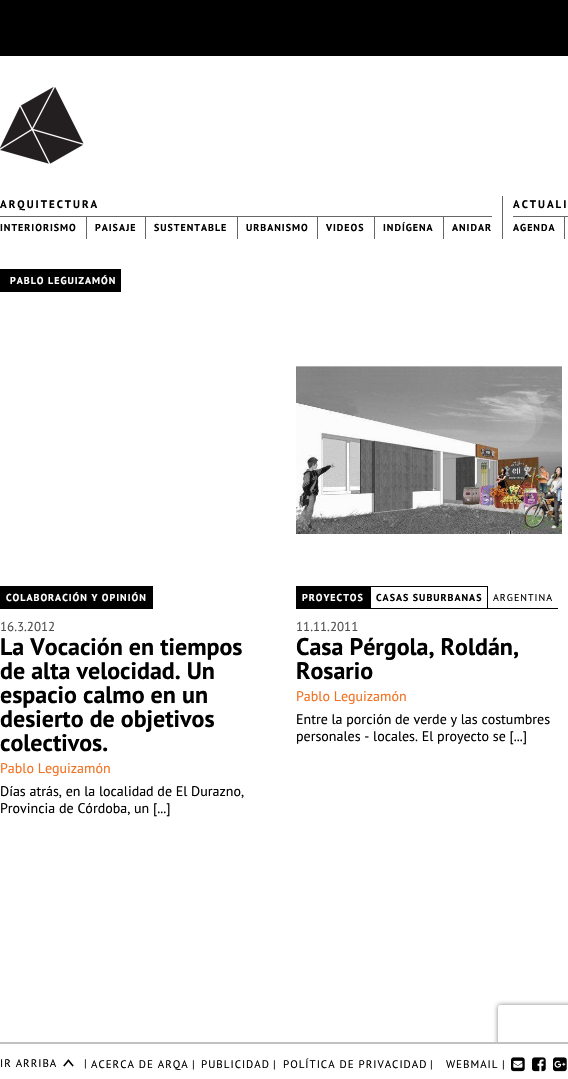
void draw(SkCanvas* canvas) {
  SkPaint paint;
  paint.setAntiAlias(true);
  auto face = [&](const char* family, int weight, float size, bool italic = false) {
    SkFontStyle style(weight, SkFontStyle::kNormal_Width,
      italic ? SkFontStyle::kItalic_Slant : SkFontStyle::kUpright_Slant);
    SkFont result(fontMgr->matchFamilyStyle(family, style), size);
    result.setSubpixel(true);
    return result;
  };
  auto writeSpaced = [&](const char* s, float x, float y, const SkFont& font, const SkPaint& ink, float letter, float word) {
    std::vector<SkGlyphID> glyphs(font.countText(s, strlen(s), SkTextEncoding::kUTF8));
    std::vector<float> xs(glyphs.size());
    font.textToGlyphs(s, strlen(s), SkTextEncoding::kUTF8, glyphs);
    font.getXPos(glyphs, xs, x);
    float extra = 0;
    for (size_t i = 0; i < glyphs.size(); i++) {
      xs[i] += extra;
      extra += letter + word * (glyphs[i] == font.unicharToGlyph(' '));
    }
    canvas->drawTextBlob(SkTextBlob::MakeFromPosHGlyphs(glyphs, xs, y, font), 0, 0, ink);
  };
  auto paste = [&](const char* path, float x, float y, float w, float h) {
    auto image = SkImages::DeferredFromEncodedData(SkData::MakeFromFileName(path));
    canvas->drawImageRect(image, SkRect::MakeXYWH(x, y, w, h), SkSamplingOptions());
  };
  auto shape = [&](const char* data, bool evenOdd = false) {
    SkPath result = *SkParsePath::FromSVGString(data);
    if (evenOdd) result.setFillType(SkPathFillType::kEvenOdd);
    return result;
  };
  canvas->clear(0xffffffff);
  paint.setColor(0xff000000);
  canvas->drawRect(SkRect::MakeXYWH(0, 0, 568, 56), paint);
  paste("img/1.png", 0, 87, 84, 77);
  {
    const struct { float x, y, w, h; SkColor color; } items[] = {
      {502, 196, 1, 43, 0xff666666},
      {0, 216, 492, 1, 0xff666666},
      {86, 216, 1, 23, 0xff666666},
      {145, 216, 1, 23, 0xff666666},
      {237, 216, 1, 23, 0xff666666},
      {317, 216, 1, 23, 0xff666666},
      {374, 216, 1, 23, 0xff666666},
      {443, 216, 1, 23, 0xff666666},
      {513, 216, 55, 1, 0xff666666},
      {564, 216, 1, 23, 0xff666666},
      {0, 269, 121, 23, 0xff000000},
      {0, 586, 153, 23, 0xff000000},
    };
    for (auto [x, y, w, h, color] : items) {
      paint.setColor(color);
      canvas->drawRect(SkRect::MakeXYWH(x, y, w, h), paint);
    }
  }
  paste("img/2.png", 296, 366, 266, 168);
  canvas->drawRect(SkRect::MakeXYWH(296, 586, 74, 23), paint);
  paint.setStroke(true);
  paint.setStrokeWidth(1);
  canvas->drawRect(SkRect::MakeXYWH(370.5f, 586.5f, 117, 22), paint);
  paint.setStroke(false);
  canvas->drawRect(SkRect::MakeXYWH(488, 608, 70, 1), paint);
  canvas->save();
  canvas->clipPath(shape("M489 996H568V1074H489ZM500 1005H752C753 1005 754 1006 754 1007V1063C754 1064 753 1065 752 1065H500C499 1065 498 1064 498 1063V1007C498 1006 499 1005 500 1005Z", true), true);
  paint.setColor(0xff808080);
  paint.setMaskFilter(SkMaskFilter::MakeBlur(kNormal_SkBlurStyle, 2.5f));
  canvas->drawRoundRect(SkRect::MakeXYWH(498, 1005, 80, 60), 2, 2, paint);
  paint.setMaskFilter(nullptr);
  canvas->restore();
  paint.setColor(0xffffffff);
  canvas->drawRect(SkRect::MakeXYWH(493, 1044, 75, 26), paint);
  paint.setColor(0xffc1c1c1);
  canvas->drawRect(SkRect::MakeXYWH(0, 1042, 568, 2), paint);
  paste("img/3.png", 63, 1059, 11, 8);
  paste("img/4.png", 511, 1057, 14, 15);
  paste("img/5.png", 532, 1057, 14, 15);
  paste("img/6.png", 553, 1057, 14, 15);
  auto f0 = face("PT Sans", 700, 11);
  paint.setColor(0xff000000);
  writeSpaced("ARQUITECTURA", 0, 208, f0, paint, 2, 0);
  auto f1 = face("PT Sans", 700, 10);
  {
    const struct { const char* s; float x, y; } items[] = {
      {"INTERIORISMO", 0, 231},
      {"PAISAJE", 95, 231},
      {"SUSTENTABLE", 154, 231},
      {"URBANISMO", 246, 231},
      {"VIDEOS", 326, 231},
      {"INDÍGENA", 383, 231},
      {"ANIDAR", 452, 231},
    };
    for (auto [s, x, y] : items) {
      writeSpaced(s, x, y, f1, paint, 1, 0);
    }
  }
  writeSpaced("ACTUALI", 513, 208, f0, paint, 2, 0);
  writeSpaced("AGENDA", 513, 231, f1, paint, 1, 0);
  paint.setColor(0xffffffff);
  writeSpaced("PABLO LEGUIZAMÓN", 10, 284, f1, paint, 1, 0);
  writeSpaced("COLABORACIÓN Y OPINIÓN", 6, 601, f1, paint, 1, 0);
  auto f2 = face("PT Sans", 400, 13);
  paint.setColor(0xff4d4d4d);
  canvas->drawString("16.3.2012", 0, 631, f2, paint);
  auto f3 = face("PT Sans", 700, 24);
  paint.setColor(0xff000000);
  {
    const struct { const char* s; float x, y; } items[] = {
      {"La Vocación en tiempos", 0, 655},
      {"de alta velocidad. Un", 0, 679},
      {"espacio calmo en un", 0, 703},
      {"desierto de objetivos", 0, 727},
      {"colectivos.", 0, 751},
    };
    for (auto [s, x, y] : items) {
      canvas->drawString(s, x, y, f3, paint);
    }
  }
  auto f4 = face("PT Sans", 400, 14);
  paint.setColor(0xfff27121);
  canvas->drawString("Pablo Leguizamón", 0, 773, f4, paint);
  paint.setColor(0xff000000);
  canvas->drawString("Días atrás, en la localidad de El Durazno,", 0, 796, f4, paint);
  canvas->drawString("Provincia de Córdoba, un [...]", 0, 813, f4, paint);
  paint.setColor(0xffffffff);
  writeSpaced("PROYECTOS", 302, 601, f1, paint, 1, 0);
  paint.setColor(0xff000000);
  writeSpaced("CASAS SUBURBANAS", 376, 601, f1, paint, 1, 0);
  auto f5 = face("PT Sans", 400, 10);
  writeSpaced("ARGENTINA", 493, 601, f5, paint, 1, 0);
  paint.setColor(0xff4d4d4d);
  canvas->drawString("11.11.2011", 296, 631, f2, paint);
  paint.setColor(0xff000000);
  canvas->drawString("Casa Pérgola, Roldán,", 296, 655, f3, paint);
  canvas->drawString("Rosario", 296, 679, f3, paint);
  paint.setColor(0xfff27121);
  canvas->drawString("Pablo Leguizamón", 296, 701, f4, paint);
  paint.setColor(0xff000000);
  canvas->drawString("Entre la porción de verde y las costumbres", 296, 724, f4, paint);
  canvas->drawString("personales - locales. El proyecto se [...]", 296, 741, f4, paint);
  auto f6 = face("PT Sans", 400, 11);
  {
    const struct { const char* s; float x, y; } items[] = {
      {"IR ARRIBA", 0, 1067},
      {"|", 84, 1067},
      {"ACERCA DE ARQA", 91, 1068},
      {"|", 192, 1068},
      {"PUBLICIDAD", 201, 1068},
      {"|", 273, 1068},
      {"POLÍTICA DE PRIVACIDAD", 283, 1068},
      {"|", 430, 1068},
      {"WEBMAIL", 446, 1068},
      {"|", 502, 1068},
    };
    for (auto [s, x, y] : items) {
      writeSpaced(s, x, y, f6, paint, 1, 0);
    }
  }
}
